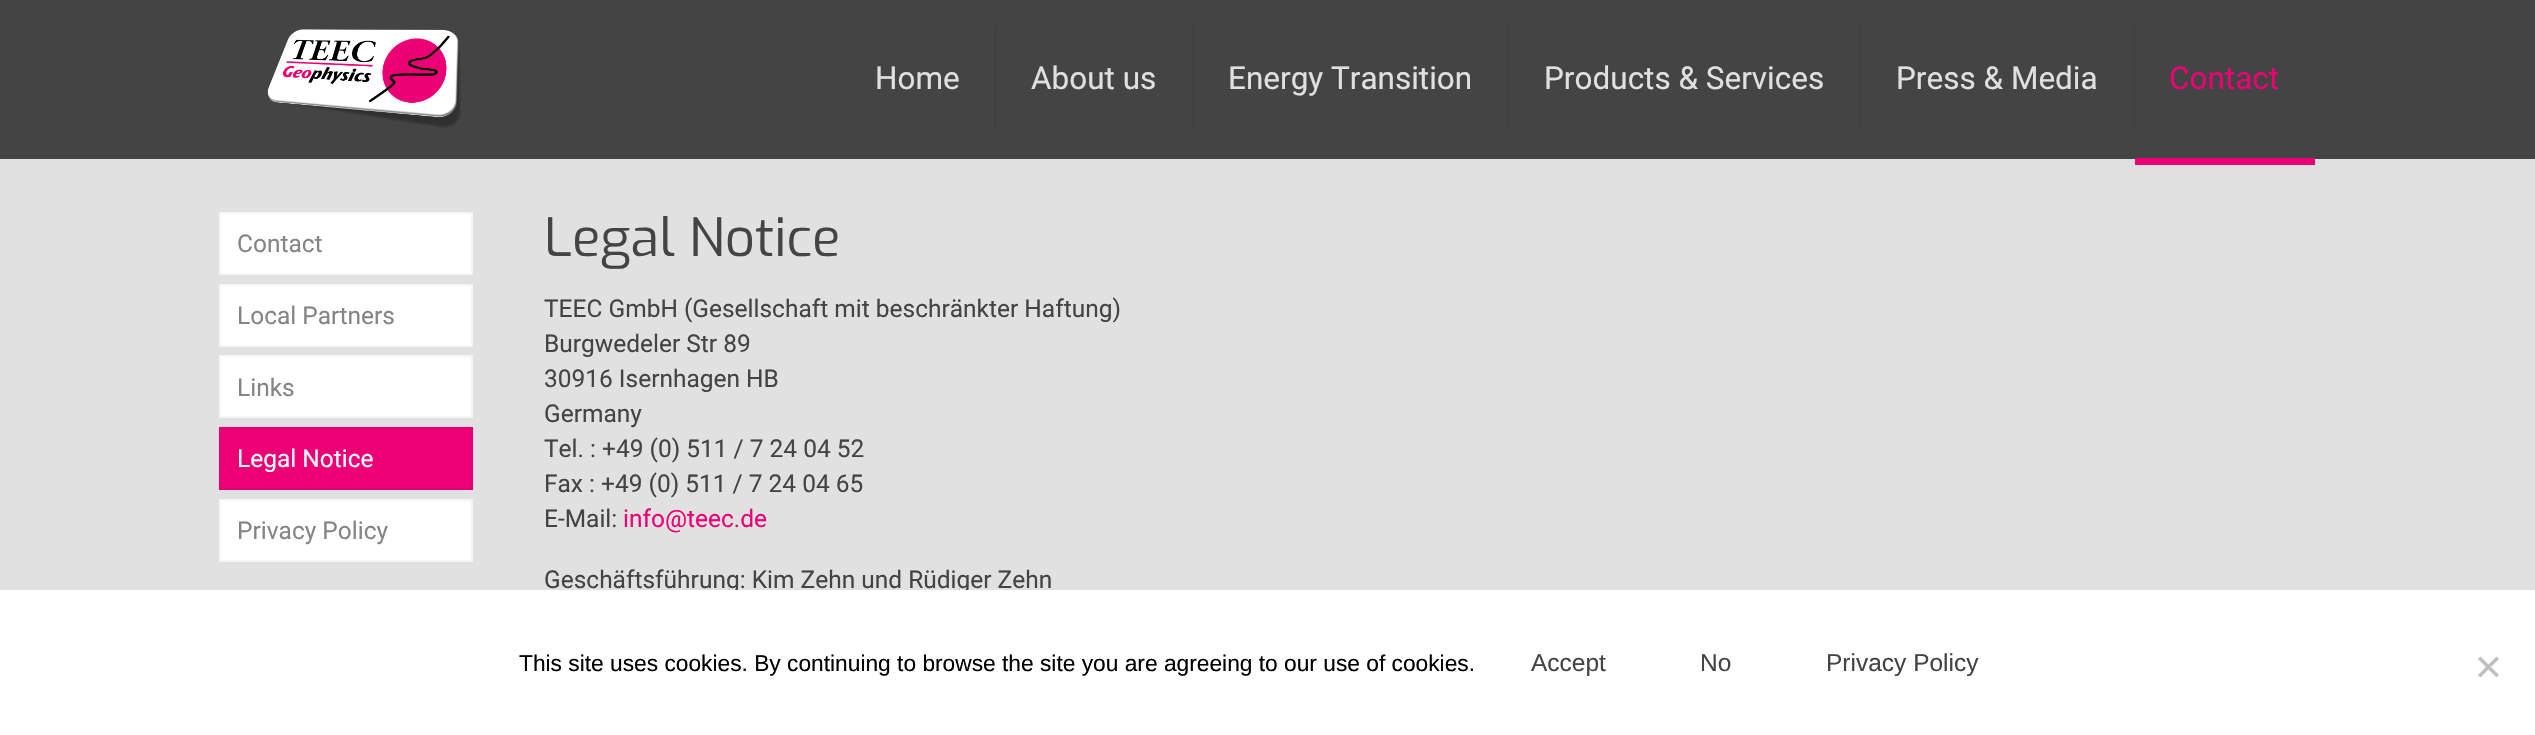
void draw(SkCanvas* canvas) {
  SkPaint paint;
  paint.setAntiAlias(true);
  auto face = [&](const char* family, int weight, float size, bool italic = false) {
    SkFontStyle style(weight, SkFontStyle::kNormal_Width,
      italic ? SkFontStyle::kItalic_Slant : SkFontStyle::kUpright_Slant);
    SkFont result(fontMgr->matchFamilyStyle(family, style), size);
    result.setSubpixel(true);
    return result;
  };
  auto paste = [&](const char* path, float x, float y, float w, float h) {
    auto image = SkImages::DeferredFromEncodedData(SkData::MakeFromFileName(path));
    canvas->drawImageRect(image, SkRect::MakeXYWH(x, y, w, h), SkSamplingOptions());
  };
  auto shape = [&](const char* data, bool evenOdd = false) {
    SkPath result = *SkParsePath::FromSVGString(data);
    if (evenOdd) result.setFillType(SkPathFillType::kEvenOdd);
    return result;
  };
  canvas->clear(0xff444444);
  paste("img/1.png", 267, 29, 194, 99);
  {
    const struct { float x, y, w, h; SkColor color; } items[] = {
      {994, 26, 2, 105, 0xff414141},
      {1192, 26, 2, 105, 0xff414141},
      {1507, 26, 2, 105, 0xff414141},
      {1859, 26, 2, 105, 0xff414141},
      {2133, 26, 2, 105, 0xff414141},
      {0, 159, 2535, 431, 0xffe1e1e1},
      {2135, 158, 180, 7, 0xffed0076},
    };
    for (auto [x, y, w, h, color] : items) {
      paint.setColor(color);
      canvas->drawRect(SkRect::MakeXYWH(x, y, w, h), paint);
    }
  }
  paint.setColor(0xffffffff);
  canvas->drawRect(SkRect::MakeXYWH(220, 213, 252, 61), paint);
  paint.setStroke(true);
  paint.setStrokeWidth(2);
  paint.setColor(0xfff5f5f5);
  canvas->drawRect(SkRect::MakeXYWH(220, 213, 252, 61), paint);
  paint.setStroke(false);
  paint.setColor(0xffffffff);
  canvas->drawRect(SkRect::MakeXYWH(220, 285, 252, 61), paint);
  paint.setStroke(true);
  paint.setColor(0xfff5f5f5);
  canvas->drawRect(SkRect::MakeXYWH(220, 285, 252, 61), paint);
  paint.setStroke(false);
  paint.setColor(0xffffffff);
  canvas->drawRect(SkRect::MakeXYWH(220, 356, 252, 61), paint);
  paint.setStroke(true);
  paint.setColor(0xfff5f5f5);
  canvas->drawRect(SkRect::MakeXYWH(220, 356, 252, 61), paint);
  paint.setStroke(false);
  paint.setColor(0xffed0076);
  canvas->drawRect(SkRect::MakeXYWH(220, 428, 252, 61), paint);
  paint.setStroke(true);
  paint.setColor(0xffe40071);
  canvas->drawRect(SkRect::MakeXYWH(220, 428, 252, 61), paint);
  paint.setStroke(false);
  paint.setColor(0xffffffff);
  canvas->drawRect(SkRect::MakeXYWH(220, 500, 252, 61), paint);
  paint.setStroke(true);
  paint.setColor(0xfff5f5f5);
  canvas->drawRect(SkRect::MakeXYWH(220, 500, 252, 61), paint);
  auto f0 = face("Roboto", 400, 31.5f);
  paint.setStroke(false);
  paint.setColor(0xffe0e0e0);
  {
    const struct { const char* s; float x, y; } items[] = {
      {"Home", 875, 89},
      {"About us", 1031, 89},
      {"Energy Transition", 1228, 89},
      {"Products & Services", 1544, 89},
      {"Press & Media", 1896, 89},
    };
    for (auto [s, x, y] : items) {
      canvas->drawString(s, x, y, f0, paint);
    }
  }
  paint.setColor(0xffed0076);
  canvas->drawString("Contact", 2169, 89, f0, paint);
  auto f1 = face("Roboto", 400, 24.5f);
  paint.setColor(0xff858585);
  {
    const struct { const char* s; float x, y; } items[] = {
      {"Contact", 237, 252},
      {"Local Partners", 237, 324},
      {"Links", 237, 396},
    };
    for (auto [s, x, y] : items) {
      canvas->drawString(s, x, y, f1, paint);
    }
  }
  paint.setColor(0xffffffff);
  canvas->drawString("Legal Notice", 237, 467, f1, paint);
  paint.setColor(0xff858585);
  canvas->drawString("Privacy Policy", 237, 539, f1, paint);
  auto f2 = face("Exo", 400, 52.5f);
  paint.setColor(0xff444444);
  canvas->drawString("Legal Notice", 544, 256, f2, paint);
  {
    const struct { const char* s; float x, y; } items[] = {
      {"TEEC GmbH (Gesellschaft mit beschränkter Haftung)", 544, 317},
      {"Burgwedeler Str 89", 544, 352},
      {"30916 Isernhagen HB", 544, 387},
      {"Germany", 544, 422},
      {"Tel. : +49 (0) 511 / 7 24 04 52", 544, 457},
      {"Fax : +49 (0) 511 / 7 24 04 65", 544, 492},
      {"E-Mail:", 544, 527},
    };
    for (auto [s, x, y] : items) {
      canvas->drawString(s, x, y, f1, paint);
    }
  }
  paint.setColor(0xffed0076);
  canvas->drawString("info@teec.de", 623, 527, f1, paint);
  paint.setColor(0xff444444);
  canvas->drawString("Geschäftsführung: Kim Zehn und Rüdiger Zehn", 544, 588, f1, paint);
  paint.setColor(0xffffffff);
  canvas->drawRect(SkRect::MakeXYWH(0, 590, 2535, 145), paint);
  auto f3 = face("Liberation Sans", 400, 22.75f);
  paint.setColor(0xff000000);
  canvas->drawString("This site uses cookies. By continuing to browse the site you are agreeing to our use of cookies.", 519, 671, f3, paint);
  auto f4 = face("Liberation Sans", 400, 24.5f);
  paint.setColor(0xff444444);
  {
    const struct { const char* s; float x, y; } items[] = {
      {"Accept", 1531, 671},
      {"No", 1700, 671},
      {"Privacy Policy", 1826, 671},
    };
    for (auto [s, x, y] : items) {
      canvas->drawString(s, x, y, f4, paint);
    }
  }
  paint.setColor(0xffc0c0c0);
  canvas->drawPath(shape("M2496.5 656.5L2499 659L2480.5 677.5L2478 675Z"), paint);
  canvas->drawPath(shape("M2478 659L2480.5 656.5L2499 675L2496.5 677.5Z"), paint);
}
